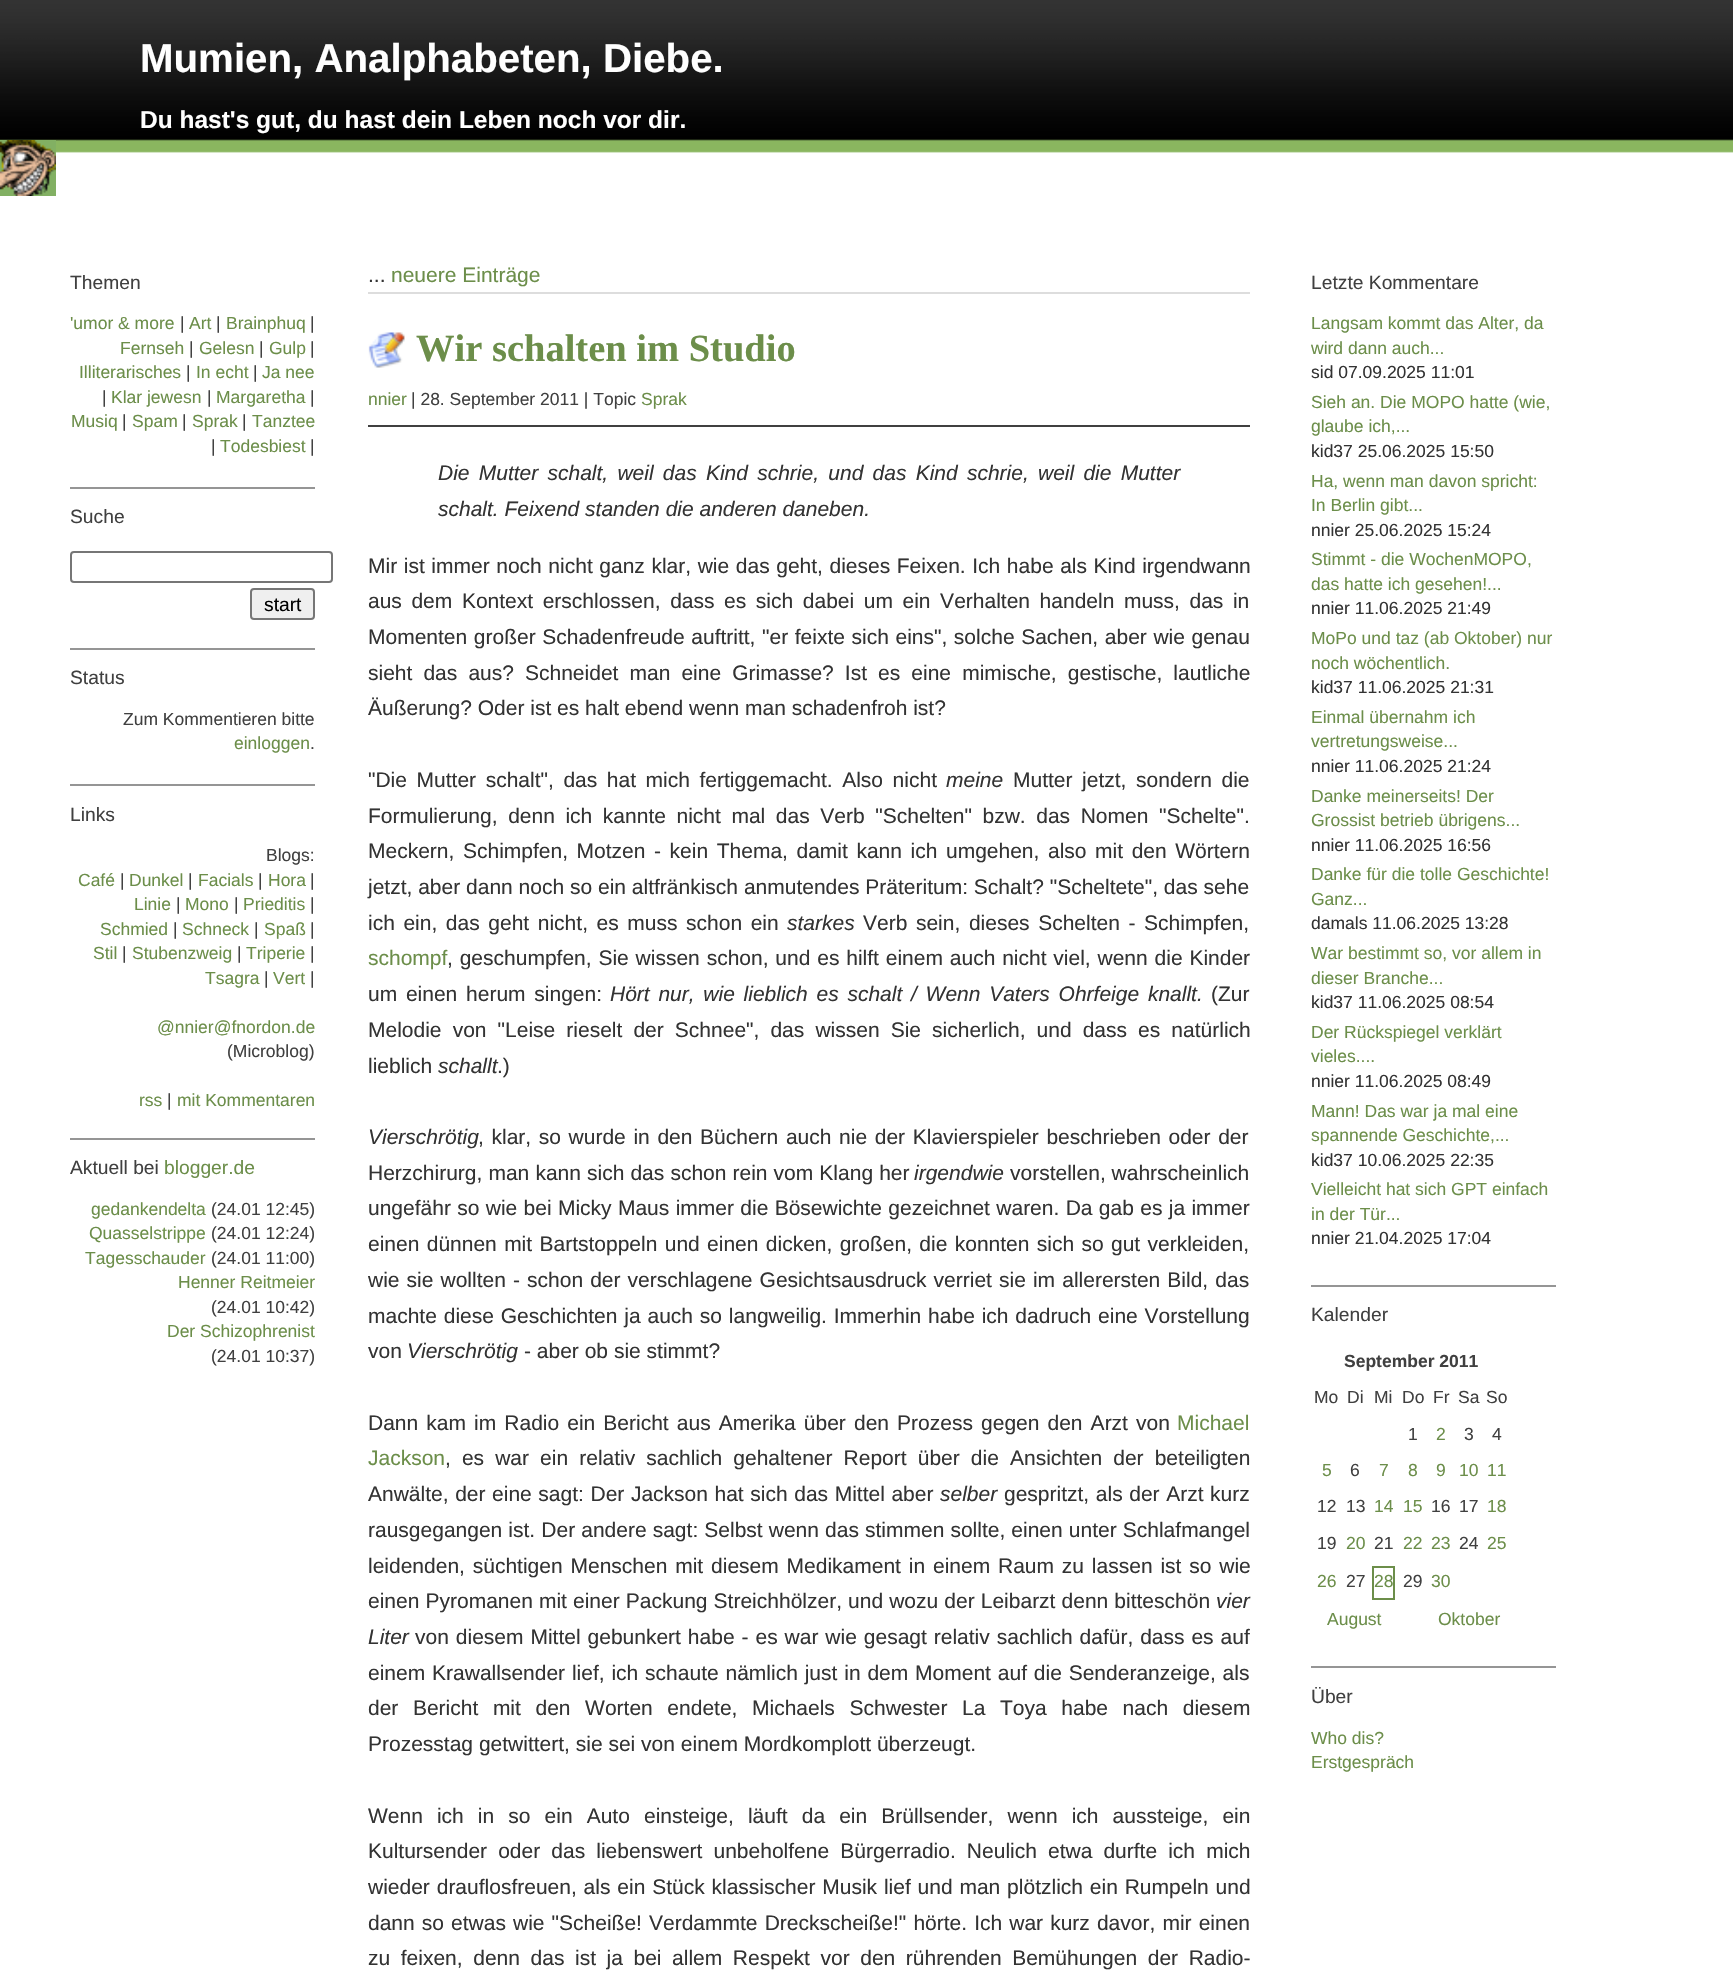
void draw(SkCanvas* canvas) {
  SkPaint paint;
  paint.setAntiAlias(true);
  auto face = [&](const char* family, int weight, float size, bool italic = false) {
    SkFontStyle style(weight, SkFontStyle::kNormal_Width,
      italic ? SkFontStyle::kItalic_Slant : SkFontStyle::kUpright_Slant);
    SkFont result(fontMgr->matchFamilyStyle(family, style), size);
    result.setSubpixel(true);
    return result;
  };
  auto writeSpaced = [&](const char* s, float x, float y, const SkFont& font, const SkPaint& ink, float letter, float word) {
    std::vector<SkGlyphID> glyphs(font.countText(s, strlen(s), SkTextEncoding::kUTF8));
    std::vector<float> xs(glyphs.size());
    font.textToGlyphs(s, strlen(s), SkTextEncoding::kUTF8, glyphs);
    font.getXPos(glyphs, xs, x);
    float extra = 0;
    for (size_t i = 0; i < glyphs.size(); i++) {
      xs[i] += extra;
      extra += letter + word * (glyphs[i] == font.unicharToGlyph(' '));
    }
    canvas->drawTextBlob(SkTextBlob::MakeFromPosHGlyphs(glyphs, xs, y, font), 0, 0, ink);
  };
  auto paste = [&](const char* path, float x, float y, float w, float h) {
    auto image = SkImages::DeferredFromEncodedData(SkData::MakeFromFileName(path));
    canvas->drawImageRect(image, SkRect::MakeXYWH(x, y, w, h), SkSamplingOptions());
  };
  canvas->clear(0xffffffff);
  paste("img/1.png", 0, 0, 1733, 153);
  paste("img/2.png", 0, 140, 56, 56);
  paint.setColor(0xff959595);
  canvas->drawRect(SkRect::MakeXYWH(70, 487, 245, 2), paint);
  paint.setStroke(true);
  paint.setStrokeWidth(2);
  paint.setColor(0xff767676);
  canvas->drawRoundRect(SkRect::MakeXYWH(71, 552, 261, 30), 3, 3, paint);
  paint.setStroke(false);
  paint.setColor(0xffefefef);
  canvas->drawRoundRect(SkRect::MakeXYWH(251, 589, 63, 30), 3, 3, paint);
  paint.setStroke(true);
  paint.setColor(0xff767676);
  canvas->drawRoundRect(SkRect::MakeXYWH(251, 589, 63, 30), 3, 3, paint);
  paint.setStroke(false);
  {
    const struct { float x, y, w, h; SkColor color; } items[] = {
      {70, 648, 245, 2, 0xff959595},
      {70, 784, 245, 2, 0xff959595},
      {70, 1138, 245, 2, 0xff959595},
      {368, 292, 882, 2, 0xffdddddd},
    };
    for (auto [x, y, w, h, color] : items) {
      paint.setColor(color);
      canvas->drawRect(SkRect::MakeXYWH(x, y, w, h), paint);
    }
  }
  paste("img/3.png", 368, 332, 37, 36);
  paint.setColor(0xff404040);
  canvas->drawRect(SkRect::MakeXYWH(368, 425, 882, 2), paint);
  paint.setColor(0xff959595);
  canvas->drawRect(SkRect::MakeXYWH(1311, 1285, 245, 2), paint);
  paint.setStroke(true);
  paint.setColor(0xff6c8e4a);
  canvas->drawRect(SkRect::MakeXYWH(1373, 1567, 21, 32), paint);
  paint.setStroke(false);
  paint.setColor(0xff959595);
  canvas->drawRect(SkRect::MakeXYWH(1311, 1666, 245, 2), paint);
  auto f0 = face("Liberation Sans", 700, 40.25f);
  paint.setColor(0xffffffff);
  canvas->drawString("Mumien, Analphabeten, Diebe.", 140, 72, f0, paint);
  auto f1 = face("Liberation Sans", 700, 24.5f);
  canvas->drawString("Du hast's gut, du hast dein Leben noch vor dir.", 140, 128, f1, paint);
  auto f2 = face("Liberation Sans", 400, 19.25f);
  paint.setColor(0xff404040);
  canvas->drawString("Themen", 70, 289, f2, paint);
  auto f3 = face("Liberation Sans", 400, 17.5f);
  paint.setColor(0xff6c8e4a);
  canvas->drawString("'umor & more", 70, 329, f3, paint);
  paint.setColor(0xff404040);
  canvas->drawString("|", 180, 329, f3, paint);
  paint.setColor(0xff6c8e4a);
  canvas->drawString("Art", 189, 329, f3, paint);
  paint.setColor(0xff404040);
  canvas->drawString("|", 216, 329, f3, paint);
  paint.setColor(0xff6c8e4a);
  canvas->drawString("Brainphuq", 226, 329, f3, paint);
  paint.setColor(0xff404040);
  canvas->drawString("|", 310, 329, f3, paint);
  paint.setColor(0xff6c8e4a);
  canvas->drawString("Fernseh", 120, 354, f3, paint);
  paint.setColor(0xff404040);
  canvas->drawString("|", 189, 354, f3, paint);
  paint.setColor(0xff6c8e4a);
  canvas->drawString("Gelesn", 199, 354, f3, paint);
  paint.setColor(0xff404040);
  canvas->drawString("|", 259, 354, f3, paint);
  paint.setColor(0xff6c8e4a);
  canvas->drawString("Gulp", 269, 354, f3, paint);
  paint.setColor(0xff404040);
  canvas->drawString("|", 310, 354, f3, paint);
  paint.setColor(0xff6c8e4a);
  canvas->drawString("Illiterarisches", 79, 378, f3, paint);
  paint.setColor(0xff404040);
  canvas->drawString("|", 186, 378, f3, paint);
  paint.setColor(0xff6c8e4a);
  canvas->drawString("In echt", 196, 378, f3, paint);
  paint.setColor(0xff404040);
  canvas->drawString("|", 253, 378, f3, paint);
  paint.setColor(0xff6c8e4a);
  canvas->drawString("Ja nee", 262, 378, f3, paint);
  paint.setColor(0xff404040);
  canvas->drawString("|", 102, 403, f3, paint);
  paint.setColor(0xff6c8e4a);
  canvas->drawString("Klar jewesn", 111, 403, f3, paint);
  paint.setColor(0xff404040);
  canvas->drawString("|", 207, 403, f3, paint);
  paint.setColor(0xff6c8e4a);
  canvas->drawString("Margaretha", 216, 403, f3, paint);
  paint.setColor(0xff404040);
  canvas->drawString("|", 310, 403, f3, paint);
  paint.setColor(0xff6c8e4a);
  canvas->drawString("Musiq", 71, 427, f3, paint);
  paint.setColor(0xff404040);
  canvas->drawString("|", 122, 427, f3, paint);
  paint.setColor(0xff6c8e4a);
  canvas->drawString("Spam", 132, 427, f3, paint);
  paint.setColor(0xff404040);
  canvas->drawString("|", 182, 427, f3, paint);
  paint.setColor(0xff6c8e4a);
  canvas->drawString("Sprak", 192, 427, f3, paint);
  paint.setColor(0xff404040);
  canvas->drawString("|", 242, 427, f3, paint);
  paint.setColor(0xff6c8e4a);
  canvas->drawString("Tanztee", 252, 427, f3, paint);
  paint.setColor(0xff404040);
  canvas->drawString("|", 211, 452, f3, paint);
  paint.setColor(0xff6c8e4a);
  canvas->drawString("Todesbiest", 220, 452, f3, paint);
  paint.setColor(0xff404040);
  canvas->drawString("|", 310, 452, f3, paint);
  canvas->drawString("Suche", 70, 523, f2, paint);
  paint.setColor(0xff000000);
  canvas->drawString("start", 264, 611, f2, paint);
  paint.setColor(0xff404040);
  canvas->drawString("Status", 70, 684, f2, paint);
  canvas->drawString("Zum Kommentieren bitte", 123, 725, f3, paint);
  paint.setColor(0xff6c8e4a);
  canvas->drawString("einloggen", 234, 749, f3, paint);
  paint.setColor(0xff404040);
  canvas->drawString(".", 310, 749, f3, paint);
  canvas->drawString("Links", 70, 821, f2, paint);
  canvas->drawString("Blogs:", 266, 861, f3, paint);
  paint.setColor(0xff6c8e4a);
  canvas->drawString("Café", 78, 886, f3, paint);
  paint.setColor(0xff404040);
  canvas->drawString("|", 120, 886, f3, paint);
  paint.setColor(0xff6c8e4a);
  canvas->drawString("Dunkel", 129, 886, f3, paint);
  paint.setColor(0xff404040);
  canvas->drawString("|", 188, 886, f3, paint);
  paint.setColor(0xff6c8e4a);
  canvas->drawString("Facials", 198, 886, f3, paint);
  paint.setColor(0xff404040);
  canvas->drawString("|", 258, 886, f3, paint);
  paint.setColor(0xff6c8e4a);
  canvas->drawString("Hora", 268, 886, f3, paint);
  paint.setColor(0xff404040);
  canvas->drawString("|", 310, 886, f3, paint);
  paint.setColor(0xff6c8e4a);
  canvas->drawString("Linie", 134, 910, f3, paint);
  paint.setColor(0xff404040);
  canvas->drawString("|", 176, 910, f3, paint);
  paint.setColor(0xff6c8e4a);
  canvas->drawString("Mono", 185, 910, f3, paint);
  paint.setColor(0xff404040);
  canvas->drawString("|", 234, 910, f3, paint);
  paint.setColor(0xff6c8e4a);
  canvas->drawString("Prieditis", 243, 910, f3, paint);
  paint.setColor(0xff404040);
  canvas->drawString("|", 310, 910, f3, paint);
  paint.setColor(0xff6c8e4a);
  canvas->drawString("Schmied", 100, 935, f3, paint);
  paint.setColor(0xff404040);
  canvas->drawString("|", 173, 935, f3, paint);
  paint.setColor(0xff6c8e4a);
  canvas->drawString("Schneck", 182, 935, f3, paint);
  paint.setColor(0xff404040);
  canvas->drawString("|", 254, 935, f3, paint);
  paint.setColor(0xff6c8e4a);
  canvas->drawString("Spaß", 264, 935, f3, paint);
  paint.setColor(0xff404040);
  canvas->drawString("|", 310, 935, f3, paint);
  paint.setColor(0xff6c8e4a);
  canvas->drawString("Stil", 93, 959, f3, paint);
  paint.setColor(0xff404040);
  canvas->drawString("|", 122, 959, f3, paint);
  paint.setColor(0xff6c8e4a);
  canvas->drawString("Stubenzweig", 132, 959, f3, paint);
  paint.setColor(0xff404040);
  canvas->drawString("|", 237, 959, f3, paint);
  paint.setColor(0xff6c8e4a);
  canvas->drawString("Triperie", 246, 959, f3, paint);
  paint.setColor(0xff404040);
  canvas->drawString("|", 310, 959, f3, paint);
  paint.setColor(0xff6c8e4a);
  canvas->drawString("Tsagra", 205, 984, f3, paint);
  paint.setColor(0xff404040);
  canvas->drawString("|", 264, 984, f3, paint);
  paint.setColor(0xff6c8e4a);
  canvas->drawString("Vert", 273, 984, f3, paint);
  paint.setColor(0xff404040);
  canvas->drawString("|", 310, 984, f3, paint);
  paint.setColor(0xff6c8e4a);
  canvas->drawString("@nnier@fnordon.de", 157, 1033, f3, paint);
  paint.setColor(0xff404040);
  canvas->drawString("(Microblog)", 227, 1057, f3, paint);
  paint.setColor(0xff6c8e4a);
  canvas->drawString("rss", 139, 1106, f3, paint);
  paint.setColor(0xff404040);
  canvas->drawString("|", 167, 1106, f3, paint);
  paint.setColor(0xff6c8e4a);
  canvas->drawString("mit Kommentaren", 177, 1106, f3, paint);
  paint.setColor(0xff404040);
  canvas->drawString("Aktuell bei", 70, 1174, f2, paint);
  paint.setColor(0xff6c8e4a);
  canvas->drawString("blogger.de", 164, 1174, f2, paint);
  canvas->drawString("gedankendelta", 91, 1215, f3, paint);
  paint.setColor(0xff404040);
  canvas->drawString("(24.01 12:45)", 211, 1215, f3, paint);
  paint.setColor(0xff6c8e4a);
  canvas->drawString("Quasselstrippe", 89, 1239, f3, paint);
  paint.setColor(0xff404040);
  canvas->drawString("(24.01 12:24)", 211, 1239, f3, paint);
  paint.setColor(0xff6c8e4a);
  canvas->drawString("Tagesschauder", 85, 1264, f3, paint);
  paint.setColor(0xff404040);
  canvas->drawString("(24.01 11:00)", 211, 1264, f3, paint);
  paint.setColor(0xff6c8e4a);
  canvas->drawString("Henner Reitmeier", 178, 1288, f3, paint);
  paint.setColor(0xff404040);
  canvas->drawString("(24.01 10:42)", 211, 1313, f3, paint);
  paint.setColor(0xff6c8e4a);
  canvas->drawString("Der Schizophrenist", 167, 1337, f3, paint);
  paint.setColor(0xff404040);
  canvas->drawString("(24.01 10:37)", 211, 1362, f3, paint);
  auto f4 = face("Liberation Sans", 400, 21);
  paint.setColor(0xff333333);
  canvas->drawString("...", 368, 282, f4, paint);
  paint.setColor(0xff6c8e4a);
  canvas->drawString("neuere Einträge", 391, 282, f4, paint);
  auto f5 = face("Liberation Serif", 700, 38.5f);
  canvas->drawString("Wir schalten im Studio", 416, 361, f5, paint);
  canvas->drawString("nnier", 368, 405, f3, paint);
  paint.setColor(0xff404040);
  canvas->drawString("| 28. September 2011 | Topic", 411, 405, f3, paint);
  paint.setColor(0xff6c8e4a);
  canvas->drawString("Sprak", 641, 405, f3, paint);
  auto f6 = face("Liberation Sans", 400, 21, true);
  paint.setColor(0xff333333);
  writeSpaced("Die Mutter schalt, weil das Kind schrie, und das Kind schrie, weil die Mutter", 438, 480, f6, paint, 0, 3.4f);
  canvas->drawString("schalt. Feixend standen die anderen daneben.", 438, 516, f6, paint);
  writeSpaced("Mir ist immer noch nicht ganz klar, wie das geht, dieses Feixen. Ich habe als Kind irgendwann", 368, 573, f4, paint, 0, 0.75f);
  writeSpaced("aus dem Kontext erschlossen, dass es sich dabei um ein Verhalten handeln muss, das in", 368, 608, f4, paint, 0, 3.75f);
  writeSpaced("Momenten großer Schadenfreude auftritt, \"er feixte sich eins\", solche Sachen, aber wie genau", 368, 644, f4, paint, 0, 0.75f);
  writeSpaced("sieht das aus? Schneidet man eine Grimasse? Ist es eine mimische, gestische, lautliche", 368, 680, f4, paint, 0, 5.25f);
  canvas->drawString("Äußerung? Oder ist es halt ebend wenn man schadenfroh ist?", 368, 715, f4, paint);
  writeSpaced("\"Die Mutter schalt\", das hat mich fertiggemacht. Also nicht", 368, 787, f4, paint, 0, 3.75f);
  canvas->drawString("meine", 946, 787, f6, paint);
  writeSpaced("Mutter jetzt, sondern die", 1013, 787, f4, paint, 0, 3.75f);
  writeSpaced("Formulierung, denn ich kannte nicht mal das Verb \"Schelten\" bzw. das Nomen \"Schelte\".", 368, 823, f4, paint, 0, 4.75f);
  writeSpaced("Meckern, Schimpfen, Motzen - kein Thema, damit kann ich umgehen, also mit den Wörtern", 368, 858, f4, paint, 0, 2.75f);
  canvas->drawString("jetzt, aber dann noch so ein altfränkisch anmutendes Präteritum: Schalt? \"Scheltete\", das sehe", 368, 894, f4, paint);
  writeSpaced("ich ein, das geht nicht, es muss schon ein", 368, 930, f4, paint, 0, 2.75f);
  canvas->drawString("starkes", 787, 930, f6, paint);
  writeSpaced("Verb sein, dieses Schelten - Schimpfen,", 863, 930, f4, paint, 0, 2.75f);
  paint.setColor(0xff6c8e4a);
  canvas->drawString("schompf", 368, 965, f4, paint);
  paint.setColor(0xff333333);
  writeSpaced(", geschumpfen, Sie wissen schon, und es hilft einem auch nicht viel, wenn die Kinder", 447, 965, f4, paint, 0, 1);
  writeSpaced("um einen herum singen:", 368, 1001, f4, paint, 0, 2.9f);
  writeSpaced("Hört nur, wie lieblich es schalt / Wenn Vaters Ohrfeige knallt.", 610, 1001, f6, paint, 0, 2.9f);
  canvas->drawString("(Zur", 1211, 1001, f4, paint);
  writeSpaced("Melodie von \"Leise rieselt der Schnee\", das wissen Sie sicherlich, und dass es natürlich", 368, 1037, f4, paint, 0, 5.25f);
  canvas->drawString("lieblich", 368, 1073, f4, paint);
  canvas->drawString("schallt", 438, 1073, f6, paint);
  canvas->drawString(".)", 497, 1073, f4, paint);
  canvas->drawString("Vierschrötig", 368, 1144, f6, paint);
  writeSpaced(", klar, so wurde in den Büchern auch nie der Klavierspieler beschrieben oder der", 478, 1144, f4, paint, 0, 1.8f);
  writeSpaced("Herzchirurg, man kann sich das schon rein vom Klang her", 368, 1180, f4, paint, 0, 0.25f);
  canvas->drawString("irgendwie", 914, 1180, f6, paint);
  canvas->drawString("vorstellen, wahrscheinlich", 1010, 1180, f4, paint);
  writeSpaced("ungefähr so wie bei Micky Maus immer die Bösewichte gezeichnet waren. Da gab es ja immer", 368, 1215, f4, paint, 0, 0.5f);
  writeSpaced("einen dünnen mit Bartstoppeln und einen dicken, großen, die konnten sich so gut verkleiden,", 368, 1251, f4, paint, 0, 1.5f);
  writeSpaced("wie sie wollten - schon der verschlagene Gesichtsausdruck verriet sie im allerersten Bild, das", 368, 1287, f4, paint, 0, 1.25f);
  writeSpaced("machte diese Geschichten ja auch so langweilig. Immerhin habe ich dadruch eine Vorstellung", 368, 1323, f4, paint, 0, 1);
  canvas->drawString("von", 368, 1358, f4, paint);
  canvas->drawString("Vierschrötig", 407, 1358, f6, paint);
  canvas->drawString("- aber ob sie stimmt?", 524, 1358, f4, paint);
  writeSpaced("Dann kam im Radio ein Bericht aus Amerika über den Prozess gegen den Arzt von", 368, 1430, f4, paint, 0, 2.25f);
  paint.setColor(0xff6c8e4a);
  canvas->drawString("Michael", 1177, 1430, f4, paint);
  canvas->drawString("Jackson", 368, 1465, f4, paint);
  paint.setColor(0xff333333);
  writeSpaced(", es war ein relativ sachlich gehaltener Report über die Ansichten der beteiligten", 445, 1465, f4, paint, 0, 5.25f);
  writeSpaced("Anwälte, der eine sagt: Der Jackson hat sich das Mittel aber", 368, 1501, f4, paint, 0, 0.75f);
  canvas->drawString("selber", 940, 1501, f6, paint);
  writeSpaced("gespritzt, als der Arzt kurz", 1004, 1501, f4, paint, 0, 0.75f);
  writeSpaced("rausgegangen ist. Der andere sagt: Selbst wenn das stimmen sollte, einen unter Schlafmangel", 368, 1537, f4, paint, 0, 0.25f);
  writeSpaced("leidenden, süchtigen Menschen mit diesem Medikament in einem Raum zu lassen ist so wie", 368, 1573, f4, paint, 0, 2);
  writeSpaced("einen Pyromanen mit einer Packung Streichhölzer, und wozu der Leibarzt denn bitteschön", 368, 1608, f4, paint, 0, 0.25f);
  canvas->drawString("vier", 1216, 1608, f6, paint);
  canvas->drawString("Liter", 368, 1644, f6, paint);
  writeSpaced("von diesem Mittel gebunkert habe - es war wie gesagt relativ sachlich dafür, dass es auf", 415, 1644, f4, paint, 0, 1.1f);
  writeSpaced("einem Krawallsender lief, ich schaute nämlich just in dem Moment auf die Senderanzeige, als", 368, 1680, f4, paint, 0, 1);
  writeSpaced("der Bericht mit den Worten endete, Michaels Schwester La Toya habe nach diesem", 368, 1715, f4, paint, 0, 8.75f);
  canvas->drawString("Prozesstag getwittert, sie sei von einem Mordkomplott überzeugt.", 368, 1751, f4, paint);
  writeSpaced("Wenn ich in so ein Auto einsteige, läuft da ein Brüllsender, wenn ich aussteige, ein", 368, 1823, f4, paint, 0, 8.25f);
  writeSpaced("Kultursender oder das liebenswert unbeholfene Bürgerradio. Neulich etwa durfte ich mich", 368, 1858, f4, paint, 0, 5.25f);
  writeSpaced("wieder drauflosfreuen, als ein Stück klassischer Musik lief und man plötzlich ein Rumpeln und", 368, 1894, f4, paint, 0, 1);
  writeSpaced("dann so etwas wie \"Scheiße! Verdammte Dreckscheiße!\" hörte. Ich war kurz davor, mir einen", 368, 1930, f4, paint, 0, 1.25f);
  writeSpaced("zu feixen, denn das ist ja bei allem Respekt vor den rührenden Bemühungen der Radio-", 368, 1965, f4, paint, 0, 4.75f);
  paint.setColor(0xff404040);
  canvas->drawString("Letzte Kommentare", 1311, 289, f2, paint);
  paint.setColor(0xff6c8e4a);
  canvas->drawString("Langsam kommt das Alter, da", 1311, 329, f3, paint);
  canvas->drawString("wird dann auch...", 1311, 354, f3, paint);
  paint.setColor(0xff333333);
  canvas->drawString("sid 07.09.2025 11:01", 1311, 378, f3, paint);
  paint.setColor(0xff6c8e4a);
  canvas->drawString("Sieh an. Die MOPO hatte (wie,", 1311, 408, f3, paint);
  canvas->drawString("glaube ich,...", 1311, 432, f3, paint);
  paint.setColor(0xff333333);
  canvas->drawString("kid37 25.06.2025 15:50", 1311, 457, f3, paint);
  paint.setColor(0xff6c8e4a);
  canvas->drawString("Ha, wenn man davon spricht:", 1311, 487, f3, paint);
  canvas->drawString("In Berlin gibt...", 1311, 511, f3, paint);
  paint.setColor(0xff333333);
  canvas->drawString("nnier 25.06.2025 15:24", 1311, 536, f3, paint);
  paint.setColor(0xff6c8e4a);
  canvas->drawString("Stimmt - die WochenMOPO,", 1311, 565, f3, paint);
  canvas->drawString("das hatte ich gesehen!...", 1311, 590, f3, paint);
  paint.setColor(0xff333333);
  canvas->drawString("nnier 11.06.2025 21:49", 1311, 614, f3, paint);
  paint.setColor(0xff6c8e4a);
  canvas->drawString("MoPo und taz (ab Oktober) nur", 1311, 644, f3, paint);
  canvas->drawString("noch wöchentlich.", 1311, 669, f3, paint);
  paint.setColor(0xff333333);
  canvas->drawString("kid37 11.06.2025 21:31", 1311, 693, f3, paint);
  paint.setColor(0xff6c8e4a);
  canvas->drawString("Einmal übernahm ich", 1311, 723, f3, paint);
  canvas->drawString("vertretungsweise...", 1311, 747, f3, paint);
  paint.setColor(0xff333333);
  canvas->drawString("nnier 11.06.2025 21:24", 1311, 772, f3, paint);
  paint.setColor(0xff6c8e4a);
  canvas->drawString("Danke meinerseits! Der", 1311, 802, f3, paint);
  canvas->drawString("Grossist betrieb übrigens...", 1311, 826, f3, paint);
  paint.setColor(0xff333333);
  canvas->drawString("nnier 11.06.2025 16:56", 1311, 851, f3, paint);
  paint.setColor(0xff6c8e4a);
  canvas->drawString("Danke für die tolle Geschichte!", 1311, 880, f3, paint);
  canvas->drawString("Ganz...", 1311, 905, f3, paint);
  paint.setColor(0xff333333);
  canvas->drawString("damals 11.06.2025 13:28", 1311, 929, f3, paint);
  paint.setColor(0xff6c8e4a);
  canvas->drawString("War bestimmt so, vor allem in", 1311, 959, f3, paint);
  canvas->drawString("dieser Branche...", 1311, 984, f3, paint);
  paint.setColor(0xff333333);
  canvas->drawString("kid37 11.06.2025 08:54", 1311, 1008, f3, paint);
  paint.setColor(0xff6c8e4a);
  canvas->drawString("Der Rückspiegel verklärt", 1311, 1038, f3, paint);
  canvas->drawString("vieles....", 1311, 1062, f3, paint);
  paint.setColor(0xff333333);
  canvas->drawString("nnier 11.06.2025 08:49", 1311, 1087, f3, paint);
  paint.setColor(0xff6c8e4a);
  canvas->drawString("Mann! Das war ja mal eine", 1311, 1117, f3, paint);
  canvas->drawString("spannende Geschichte,...", 1311, 1141, f3, paint);
  paint.setColor(0xff333333);
  canvas->drawString("kid37 10.06.2025 22:35", 1311, 1166, f3, paint);
  paint.setColor(0xff6c8e4a);
  canvas->drawString("Vielleicht hat sich GPT einfach", 1311, 1195, f3, paint);
  canvas->drawString("in der Tür...", 1311, 1220, f3, paint);
  paint.setColor(0xff333333);
  canvas->drawString("nnier 21.04.2025 17:04", 1311, 1244, f3, paint);
  paint.setColor(0xff404040);
  canvas->drawString("Kalender", 1311, 1321, f2, paint);
  auto f7 = face("Liberation Sans", 700, 17.5f);
  canvas->drawString("September 2011", 1344, 1367, f7, paint);
  {
    const struct { const char* s; float x, y; } items[] = {
      {"Mo", 1314, 1403},
      {"Di", 1347, 1403},
      {"Mi", 1374, 1403},
      {"Do", 1402, 1403},
      {"Fr", 1433, 1403},
      {"Sa", 1458, 1403},
      {"So", 1486, 1403},
      {"1", 1408, 1440},
    };
    for (auto [s, x, y] : items) {
      canvas->drawString(s, x, y, f3, paint);
    }
  }
  paint.setColor(0xff6c8e4a);
  canvas->drawString("2", 1436, 1440, f3, paint);
  paint.setColor(0xff404040);
  canvas->drawString("3", 1464, 1440, f3, paint);
  canvas->drawString("4", 1492, 1440, f3, paint);
  paint.setColor(0xff6c8e4a);
  canvas->drawString("5", 1322, 1476, f3, paint);
  paint.setColor(0xff404040);
  canvas->drawString("6", 1350, 1476, f3, paint);
  paint.setColor(0xff6c8e4a);
  {
    const struct { const char* s; float x, y; } items[] = {
      {"7", 1379, 1476},
      {"8", 1408, 1476},
      {"9", 1436, 1476},
      {"10", 1459, 1476},
      {"11", 1487, 1476},
    };
    for (auto [s, x, y] : items) {
      canvas->drawString(s, x, y, f3, paint);
    }
  }
  paint.setColor(0xff404040);
  canvas->drawString("12", 1317, 1512, f3, paint);
  canvas->drawString("13", 1346, 1512, f3, paint);
  paint.setColor(0xff6c8e4a);
  canvas->drawString("14", 1374, 1512, f3, paint);
  canvas->drawString("15", 1403, 1512, f3, paint);
  paint.setColor(0xff404040);
  canvas->drawString("16", 1431, 1512, f3, paint);
  canvas->drawString("17", 1459, 1512, f3, paint);
  paint.setColor(0xff6c8e4a);
  canvas->drawString("18", 1487, 1512, f3, paint);
  paint.setColor(0xff404040);
  canvas->drawString("19", 1317, 1549, f3, paint);
  paint.setColor(0xff6c8e4a);
  canvas->drawString("20", 1346, 1549, f3, paint);
  paint.setColor(0xff404040);
  canvas->drawString("21", 1374, 1549, f3, paint);
  paint.setColor(0xff6c8e4a);
  canvas->drawString("22", 1403, 1549, f3, paint);
  canvas->drawString("23", 1431, 1549, f3, paint);
  paint.setColor(0xff404040);
  canvas->drawString("24", 1459, 1549, f3, paint);
  paint.setColor(0xff6c8e4a);
  canvas->drawString("25", 1487, 1549, f3, paint);
  canvas->drawString("26", 1317, 1587, f3, paint);
  paint.setColor(0xff404040);
  canvas->drawString("27", 1346, 1587, f3, paint);
  paint.setColor(0xff6c8e4a);
  canvas->drawString("28", 1374, 1587, f3, paint);
  paint.setColor(0xff404040);
  canvas->drawString("29", 1403, 1587, f3, paint);
  paint.setColor(0xff6c8e4a);
  {
    const struct { const char* s; float x, y; } items[] = {
      {"30", 1431, 1587},
      {"August", 1327, 1625},
      {"Oktober", 1438, 1625},
    };
    for (auto [s, x, y] : items) {
      canvas->drawString(s, x, y, f3, paint);
    }
  }
  paint.setColor(0xff404040);
  canvas->drawString("Über", 1311, 1703, f2, paint);
  paint.setColor(0xff6c8e4a);
  canvas->drawString("Who dis?", 1311, 1744, f3, paint);
  canvas->drawString("Erstgespräch", 1311, 1768, f3, paint);
}
